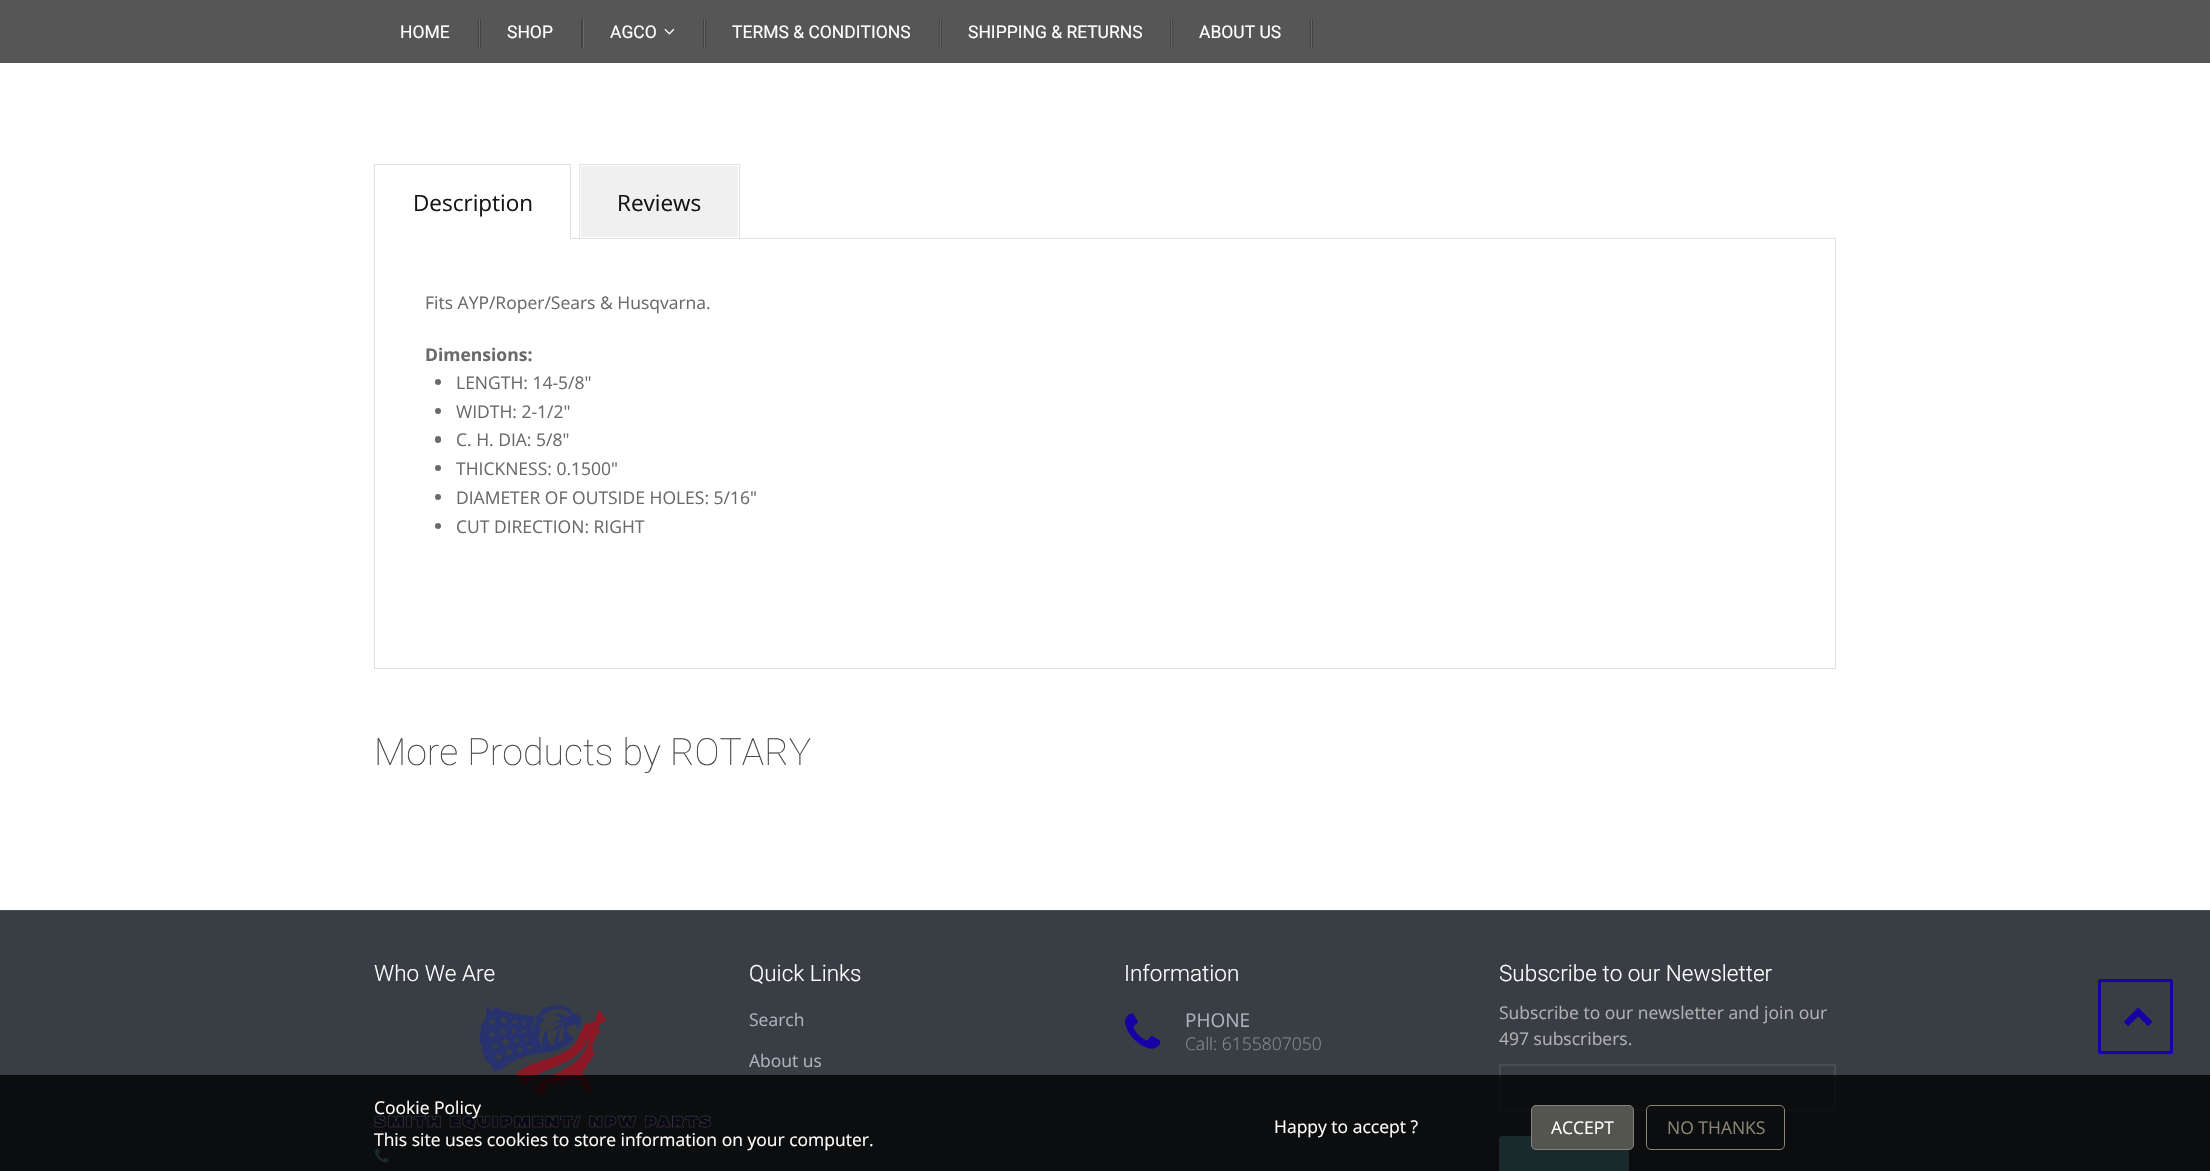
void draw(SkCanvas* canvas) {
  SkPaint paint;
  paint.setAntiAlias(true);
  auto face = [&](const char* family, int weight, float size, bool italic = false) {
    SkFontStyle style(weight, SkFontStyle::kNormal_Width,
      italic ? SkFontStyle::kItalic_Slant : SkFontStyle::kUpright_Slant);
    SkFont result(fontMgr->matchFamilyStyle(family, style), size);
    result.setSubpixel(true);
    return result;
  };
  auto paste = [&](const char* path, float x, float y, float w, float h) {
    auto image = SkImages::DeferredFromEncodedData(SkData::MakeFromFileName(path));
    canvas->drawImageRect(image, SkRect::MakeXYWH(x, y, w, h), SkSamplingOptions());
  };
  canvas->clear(0xffffffff);
  {
    const struct { float x, y, w, h; SkColor color; } items[] = {
      {0, 0, 2210, 63, 0xff565656},
      {478, 19, 3, 29, 0xff454545},
      {479, 19, 1, 29, 0xff676767},
      {581, 19, 2, 29, 0xff454545},
      {583, 19, 1, 29, 0xff676767},
    };
    for (auto [x, y, w, h, color] : items) {
      paint.setColor(color);
      canvas->drawRect(SkRect::MakeXYWH(x, y, w, h), paint);
    }
  }
  paste("img/1.png", 664, 28, 11, 7);
  {
    const struct { float x, y, w, h; SkColor color; } items[] = {
      {703, 19, 3, 29, 0xff454545},
      {704, 19, 1, 29, 0xff676767},
      {939, 19, 3, 29, 0xff454545},
      {940, 19, 1, 29, 0xff676767},
      {1170, 19, 3, 29, 0xff454545},
      {1171, 19, 1, 29, 0xff676767},
      {1310, 19, 3, 29, 0xff454545},
      {1311, 19, 1, 29, 0xff676767},
    };
    for (auto [x, y, w, h, color] : items) {
      paint.setColor(color);
      canvas->drawRect(SkRect::MakeXYWH(x, y, w, h), paint);
    }
  }
  paint.setStroke(true);
  paint.setStrokeWidth(1);
  paint.setColor(0xffe1e1e1);
  canvas->drawRect(SkRect::MakeXYWH(374.5f, 238.5f, 1461, 430), paint);
  paint.setStroke(false);
  {
    const struct { float x, y, w, h; SkColor color; } items[] = {
      {375, 238, 195, 1, 0xffffffff},
      {374, 164, 197, 1, 0xffe1e1e1},
      {570, 164, 1, 75, 0xffe1e1e1},
      {374, 164, 1, 75, 0xffe1e1e1},
      {581, 166, 157, 71, 0xfff0f0f0},
    };
    for (auto [x, y, w, h, color] : items) {
      paint.setColor(color);
      canvas->drawRect(SkRect::MakeXYWH(x, y, w, h), paint);
    }
  }
  paint.setStroke(true);
  paint.setColor(0xffe1e1e1);
  canvas->drawRect(SkRect::MakeXYWH(579.5f, 164.5f, 160, 74), paint);
  paint.setStroke(false);
  paint.setColor(0xff6a6a6a);
  canvas->drawCircle(438, 382, 3, paint);
  canvas->drawCircle(438, 411, 3, paint);
  canvas->drawRoundRect(SkRect::MakeXYWH(435, 436, 6, 7), 3, 3, paint);
  canvas->drawCircle(438, 468, 3, paint);
  canvas->drawCircle(438, 497, 3, paint);
  canvas->drawCircle(438, 526, 3, paint);
  paint.setColor(0xff393e45);
  canvas->drawRect(SkRect::MakeXYWH(0, 911, 2210, 260), paint);
  paint.setColor(0xff484e56);
  canvas->drawRect(SkRect::MakeXYWH(0, 910, 2210, 1), paint);
  paste("img/2.png", 373, 1005, 339, 126);
  paste("img/3.png", 375, 1148, 14, 15);
  paste("img/4.png", 1125, 1013, 36, 36);
  paint.setStroke(true);
  canvas->drawRect(SkRect::MakeXYWH(1500.5f, 1065.5f, 334, 44), paint);
  canvas->drawRect(SkRect::MakeXYWH(1499.5f, 1064.5f, 336, 46), paint);
  paint.setStroke(false);
  paint.setColor(0xff81cfdc);
  canvas->drawRoundRect(SkRect::MakeXYWH(1499.5f, 1136.5f, 129, 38), 2, 2, paint);
  paint.setStroke(true);
  canvas->drawRoundRect(SkRect::MakeXYWH(1499.5f, 1136.5f, 129, 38), 2, 2, paint);
  paint.setStrokeWidth(3);
  paint.setColor(0xff1700a6);
  canvas->drawRoundRect(SkRect::MakeXYWH(2099.5f, 980.5f, 72, 72), 1, 1, paint);
  paste("img/5.png", 2124, 1007, 29, 19);
  paint.setStroke(false);
  paint.setColor(0xcc000000);
  canvas->drawRect(SkRect::MakeXYWH(0, 1075, 2210, 96), paint);
  paint.setColor(0xff54554e);
  canvas->drawRoundRect(SkRect::MakeXYWH(1531.5f, 1105.5f, 102, 44), 4.5f, 4.5f, paint);
  paint.setStroke(true);
  paint.setStrokeWidth(1);
  paint.setColor(0xff83817e);
  canvas->drawRoundRect(SkRect::MakeXYWH(1531.5f, 1105.5f, 102, 44), 4.5f, 4.5f, paint);
  paint.setColor(0xff8c8574);
  canvas->drawRoundRect(SkRect::MakeXYWH(1646.5f, 1105.5f, 138, 44), 4.5f, 4.5f, paint);
  auto f0 = face("Roboto", 400, 17.5f);
  paint.setStroke(false);
  paint.setColor(0xffffffff);
  {
    const struct { const char* s; float x, y; } items[] = {
      {"HOME", 400, 38},
      {"SHOP", 507, 38},
      {"AGCO", 610, 38},
      {"TERMS & CONDITIONS", 732, 38},
      {"SHIPPING & RETURNS", 968, 38},
      {"ABOUT US", 1199, 38},
    };
    for (auto [s, x, y] : items) {
      canvas->drawString(s, x, y, f0, paint);
    }
  }
  auto f1 = face("Open Sans", 400, 22.5f);
  paint.setColor(0xff151515);
  canvas->drawString("Description", 413, 211, f1, paint);
  canvas->drawString("Reviews", 617, 211, f1, paint);
  auto f2 = face("Open Sans", 400, 17.5f);
  paint.setColor(0xff6a6a6a);
  canvas->drawString("Fits AYP/Roper/Sears & Husqvarna.", 425, 309, f2, paint);
  auto f3 = face("Open Sans", 700, 17.5f);
  canvas->drawString("Dimensions:", 425, 361, f3, paint);
  {
    const struct { const char* s; float x, y; } items[] = {
      {"LENGTH: 14-5/8\"", 456, 389},
      {"WIDTH: 2-1/2\"", 456, 418},
      {"C. H. DIA: 5/8\"", 456, 446},
      {"THICKNESS: 0.1500\"", 456, 475},
      {"DIAMETER OF OUTSIDE HOLES: 5/16\"", 456, 504},
      {"CUT DIRECTION: RIGHT", 456, 533},
    };
    for (auto [s, x, y] : items) {
      canvas->drawString(s, x, y, f2, paint);
    }
  }
  auto f4 = face("Roboto", 100, 37.5f);
  paint.setColor(0xff484747);
  canvas->drawString("More Products by ROTARY", 374, 765, f4, paint);
  auto f5 = face("Roboto", 300, 22.5f);
  paint.setColor(0xffffffff);
  canvas->drawString("Who We Are", 374, 981, f5, paint);
  canvas->drawString("Quick Links", 749, 981, f5, paint);
  paint.setColor(0xffaeb4bc);
  canvas->drawString("Search", 749, 1026, f2, paint);
  canvas->drawString("About us", 749, 1067, f2, paint);
  paint.setColor(0xffffffff);
  canvas->drawString("Information", 1124, 981, f5, paint);
  auto f6 = face("Open Sans", 400, 19);
  paint.setColor(0xffaeb4bc);
  canvas->drawString("PHONE", 1185, 1027, f6, paint);
  auto f7 = face("Open Sans", 300, 17.5f);
  paint.setColor(0xff898e91);
  canvas->drawString("Call: 6155807050", 1185, 1050, f7, paint);
  paint.setColor(0xffffffff);
  canvas->drawString("Subscribe to our Newsletter", 1499, 981, f5, paint);
  paint.setColor(0xffb1b1b1);
  canvas->drawString("Subscribe to our newsletter and join our", 1499, 1019, f2, paint);
  canvas->drawString("497 subscribers.", 1499, 1045, f2, paint);
  paint.setColor(0xffffffff);
  {
    const struct { const char* s; float x, y; } items[] = {
      {"Cookie Policy", 374, 1114},
      {"Happy to accept ?", 1274, 1133},
      {"ACCEPT", 1551, 1134},
    };
    for (auto [s, x, y] : items) {
      canvas->drawString(s, x, y, f2, paint);
    }
  }
  paint.setColor(0xff8c8574);
  canvas->drawString("NO THANKS", 1667, 1134, f2, paint);
  paint.setColor(0xffffffff);
  canvas->drawString("This site uses cookies to store information on your computer.", 374, 1146, f2, paint);
}
